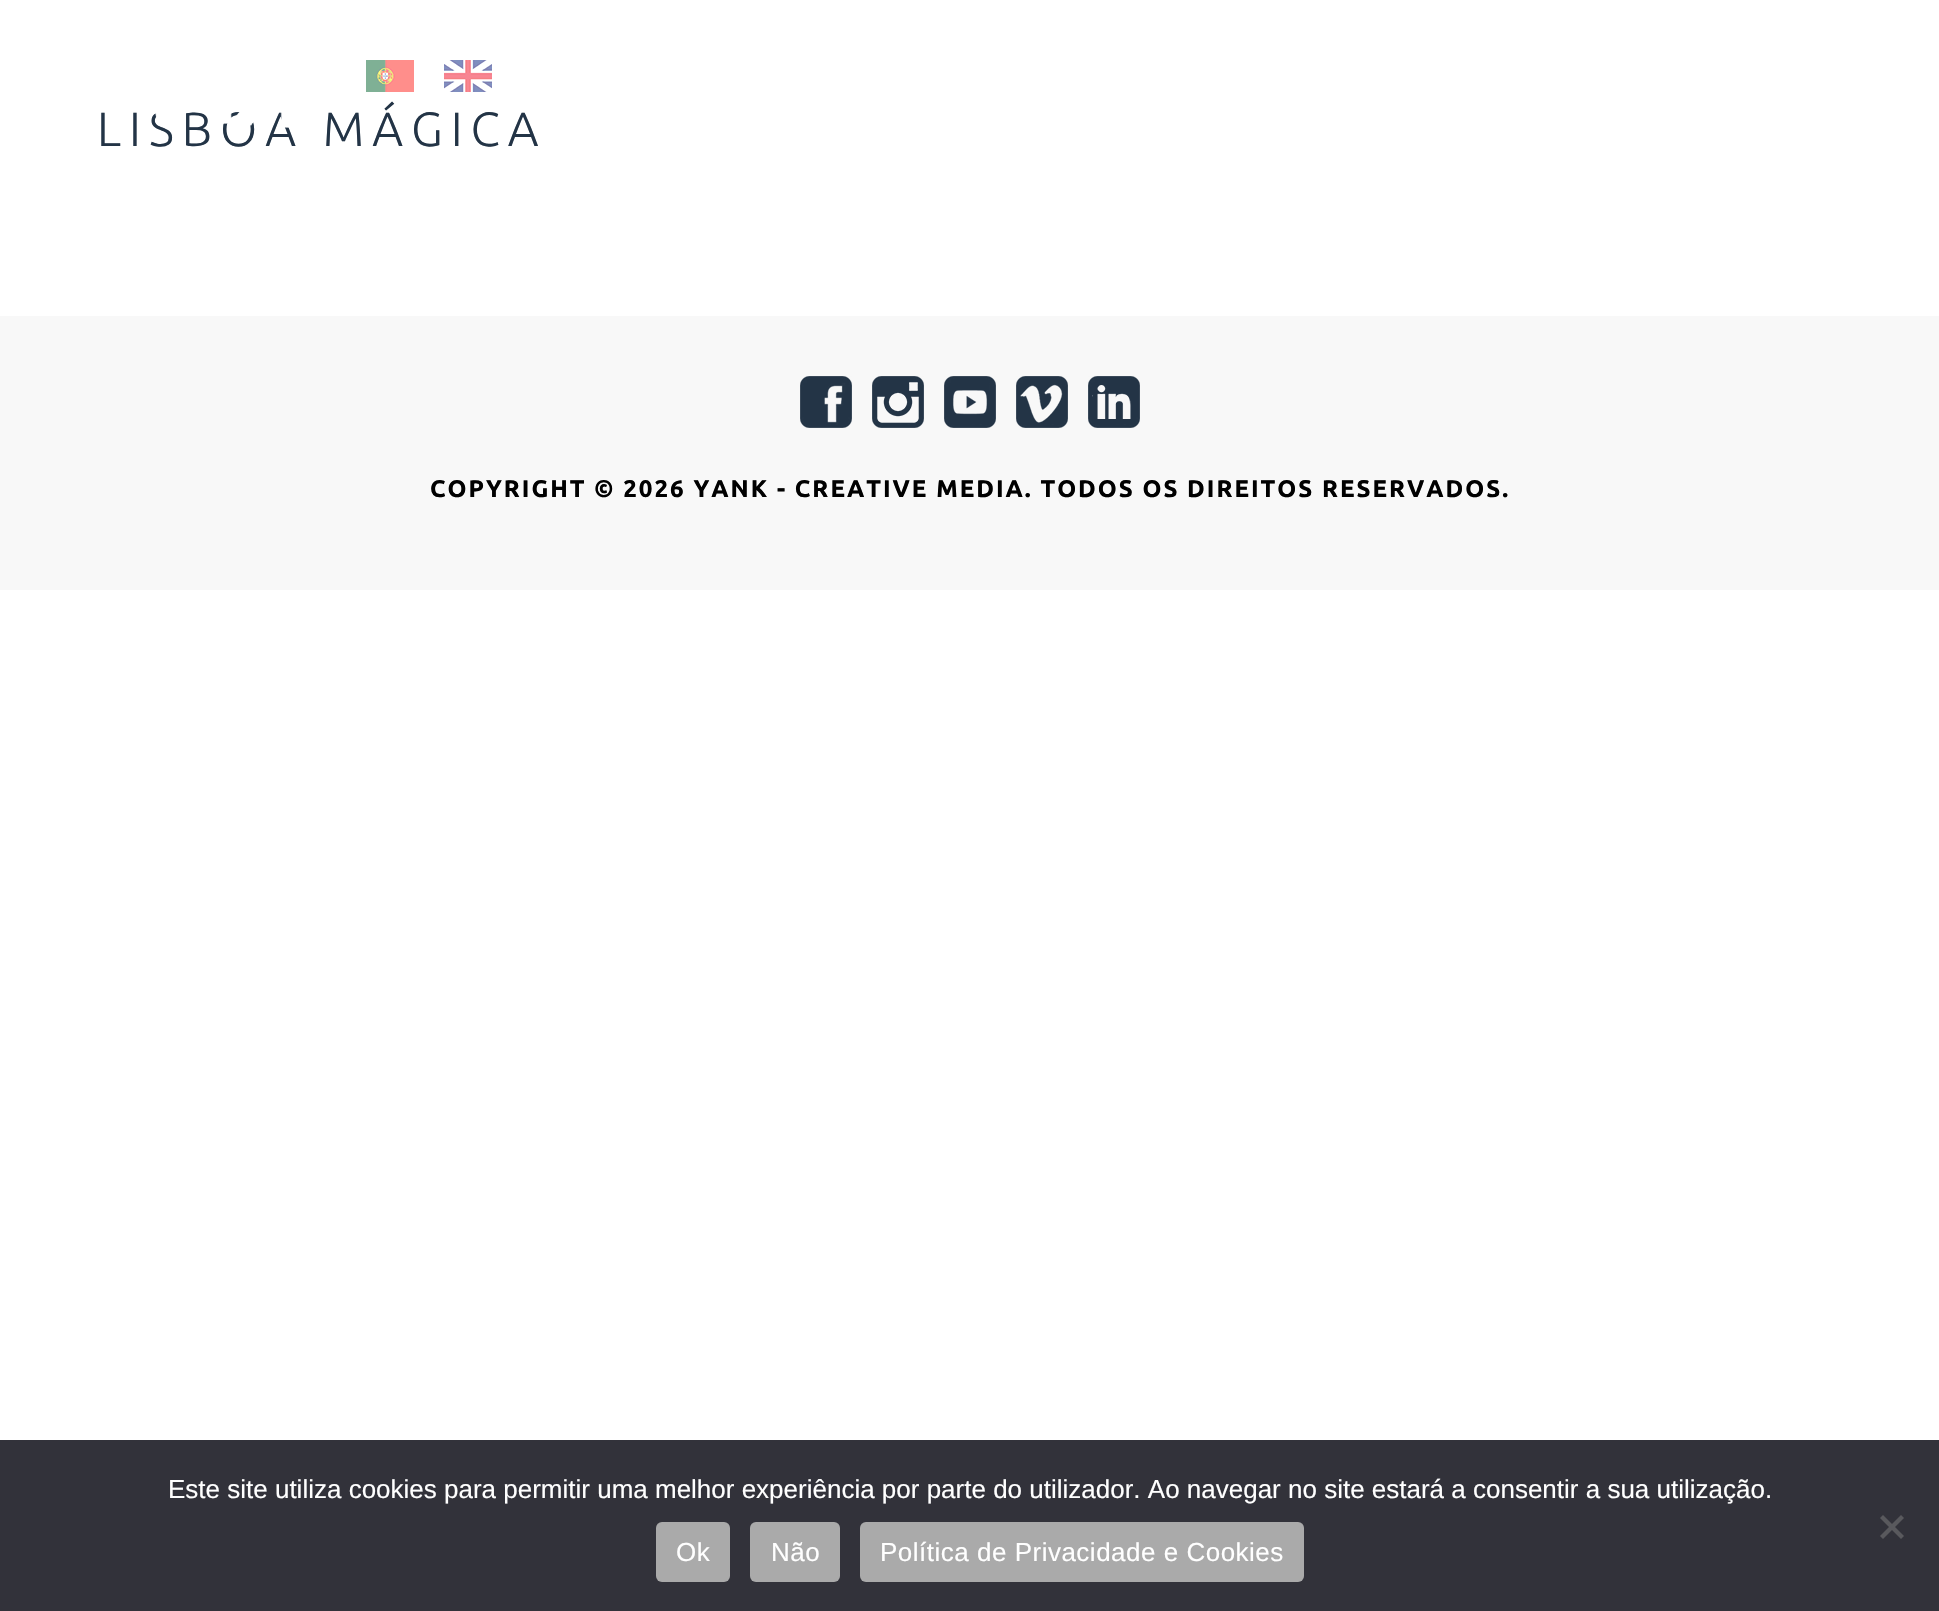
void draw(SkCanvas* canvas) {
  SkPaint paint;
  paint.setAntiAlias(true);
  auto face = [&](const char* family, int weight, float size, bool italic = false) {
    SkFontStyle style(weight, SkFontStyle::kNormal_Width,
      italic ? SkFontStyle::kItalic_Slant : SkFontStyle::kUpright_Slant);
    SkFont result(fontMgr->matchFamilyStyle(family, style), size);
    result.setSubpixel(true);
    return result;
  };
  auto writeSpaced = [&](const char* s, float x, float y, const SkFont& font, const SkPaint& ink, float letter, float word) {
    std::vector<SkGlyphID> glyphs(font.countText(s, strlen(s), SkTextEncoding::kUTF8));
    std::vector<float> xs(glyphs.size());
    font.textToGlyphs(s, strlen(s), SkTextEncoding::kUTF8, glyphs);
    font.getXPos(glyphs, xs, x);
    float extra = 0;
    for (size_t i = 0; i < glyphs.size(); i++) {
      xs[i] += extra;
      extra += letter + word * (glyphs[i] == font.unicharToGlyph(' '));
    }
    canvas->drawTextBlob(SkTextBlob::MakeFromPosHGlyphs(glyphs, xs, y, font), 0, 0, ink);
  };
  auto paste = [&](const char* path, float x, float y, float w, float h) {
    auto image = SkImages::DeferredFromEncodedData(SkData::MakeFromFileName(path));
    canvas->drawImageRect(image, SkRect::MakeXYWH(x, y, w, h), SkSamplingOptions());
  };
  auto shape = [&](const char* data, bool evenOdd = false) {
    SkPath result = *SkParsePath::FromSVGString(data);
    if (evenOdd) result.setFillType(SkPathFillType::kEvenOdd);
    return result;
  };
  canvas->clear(0xffffffff);
  paste("img/1.png", 366, 60, 48, 32);
  paste("img/2.png", 444, 60, 48, 32);
  paint.setColor(0xfff8f8f8);
  canvas->drawRect(SkRect::MakeXYWH(0, 316, 1939, 274), paint);
  paint.setColor(0xff233446);
  canvas->drawRect(SkRect::MakeXYWH(800, 376, 52, 52), paint);
  paste("img/4.png", 800, 376, 52, 52);
  canvas->drawRect(SkRect::MakeXYWH(872, 376, 52, 52), paint);
  paste("img/5.png", 872, 376, 52, 52);
  canvas->drawRect(SkRect::MakeXYWH(944, 376, 52, 52), paint);
  paste("img/6.png", 944, 376, 52, 52);
  canvas->drawRect(SkRect::MakeXYWH(1016, 376, 52, 52), paint);
  paste("img/7.png", 1016, 376, 52, 52);
  canvas->drawRect(SkRect::MakeXYWH(1088, 376, 52, 52), paint);
  paste("img/8.png", 1088, 376, 52, 52);
  paint.setColor(0xff32323a);
  canvas->drawRect(SkRect::MakeXYWH(0, 1440, 1939, 171), paint);
  paint.setColor(0xff59595d);
  canvas->drawPath(shape("M1901 1515L1904 1518L1883 1539L1880 1536Z"), paint);
  canvas->drawPath(shape("M1880 1518L1883 1515L1904 1536L1901 1539Z"), paint);
  paint.setColor(0xffaaaaaa);
  canvas->drawRoundRect(SkRect::MakeXYWH(656, 1522, 74, 60), 6, 6, paint);
  canvas->drawRoundRect(SkRect::MakeXYWH(750, 1522, 90, 60), 6, 6, paint);
  canvas->drawRoundRect(SkRect::MakeXYWH(860, 1522, 444, 60), 6, 6, paint);
  auto f0 = face("Ubuntu", 300, 48);
  paint.setColor(0xff233446);
  writeSpaced("LISBOA MÁGICA", 97, 146, f0, paint, 8, 0);
  paste("img/3.png", 155, 112, 134, 16);
  auto f1 = face("Ubuntu", 700, 24);
  paint.setColor(0xff000000);
  writeSpaced("COPYRIGHT © 2026 YANK - CREATIVE MEDIA. TODOS OS DIREITOS RESERVADOS.", 430, 497, f1, paint, 2, 0);
  auto f2 = face("Liberation Sans", 400, 26);
  paint.setColor(0xffffffff);
  canvas->drawString("Este site utiliza cookies para permitir uma melhor experiência por parte do utilizador. Ao navegar no site estará a consentir a sua utilização.", 168, 1498, f2, paint);
  {
    const struct { const char* s; float x, y; } items[] = {
      {"Ok", 676, 1561},
      {"Não", 771, 1561},
      {"Política de Privacidade e Cookies", 880, 1561},
    };
    for (auto [s, x, y] : items) {
      writeSpaced(s, x, y, f2, paint, 0.5f, 0);
    }
  }
}
